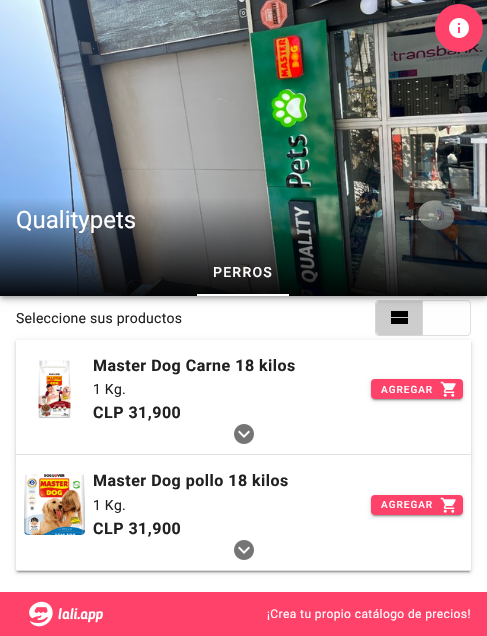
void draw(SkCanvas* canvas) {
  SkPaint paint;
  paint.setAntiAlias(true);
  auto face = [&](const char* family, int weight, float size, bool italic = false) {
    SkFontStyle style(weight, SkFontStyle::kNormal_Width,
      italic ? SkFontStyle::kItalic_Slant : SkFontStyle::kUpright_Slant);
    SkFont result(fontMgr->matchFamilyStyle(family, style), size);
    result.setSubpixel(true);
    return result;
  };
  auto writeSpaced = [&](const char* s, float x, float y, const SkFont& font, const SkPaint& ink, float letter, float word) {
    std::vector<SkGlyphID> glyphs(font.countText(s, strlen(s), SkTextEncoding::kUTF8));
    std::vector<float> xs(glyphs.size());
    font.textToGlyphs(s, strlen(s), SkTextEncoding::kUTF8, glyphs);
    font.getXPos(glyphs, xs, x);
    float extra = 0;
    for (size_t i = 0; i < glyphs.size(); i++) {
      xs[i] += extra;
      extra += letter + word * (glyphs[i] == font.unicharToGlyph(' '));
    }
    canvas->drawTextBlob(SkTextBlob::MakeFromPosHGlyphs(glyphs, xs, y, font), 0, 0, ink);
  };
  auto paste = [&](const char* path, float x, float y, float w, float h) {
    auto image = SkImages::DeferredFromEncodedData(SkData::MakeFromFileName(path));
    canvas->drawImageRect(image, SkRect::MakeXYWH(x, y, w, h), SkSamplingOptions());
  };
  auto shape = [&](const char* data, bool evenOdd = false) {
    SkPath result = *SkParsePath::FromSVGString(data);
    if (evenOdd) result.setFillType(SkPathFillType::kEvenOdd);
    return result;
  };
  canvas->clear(0xffffffff);
  paint.setColor(0xfff5f5f5);
  canvas->drawPath(shape("M379 300H423V336H379C377 336 375 334 375 332V304C375 302 377 300 379 300Z"), paint);
  paint.setStroke(true);
  paint.setStrokeWidth(1);
  paint.setColor(0x1f000000);
  canvas->drawPath(shape("M379 300.5H422.5V335.5H379C377 335.5 375.5 334 375.5 332V304C375.5 302 377 300.5 379 300.5Z"), paint);
  paint.setStroke(false);
  paint.setColor(0x29000000);
  canvas->drawPath(shape("M380 301H422V335H380C378 335 376 333 376 331V305C376 303 378 301 380 301Z"), paint);
  paste("img/3.png", 391, 311, 17, 13);
  paint.setColor(0xfff7f7f7);
  canvas->drawPath(shape("M423 300H467C469 300 471 302 471 304V332C471 334 469 336 467 336H423Z"), paint);
  paint.setColor(0x1f333333);
  canvas->drawPath(shape("M423 300H467C469 300 471 302 471 304V332C471 334 469 336 467 336H423ZM423 301H467C469 301 470 302 470 304V332C470 334 469 335 467 335H423Z", true), paint);
  paint.setColor(0xfffefefe);
  canvas->drawPath(shape("M423 301H466C468 301 470 303 470 305V331C470 333 468 335 466 335H423Z"), paint);
  paint.setColor(0x1f000000);
  paint.setMaskFilter(SkMaskFilter::MakeBlur(kNormal_SkBlurStyle, 5));
  canvas->drawRect(SkRect::MakeXYWH(0, 1, 487, 296), paint);
  paint.setMaskFilter(nullptr);
  paint.setColor(0x24000000);
  paint.setMaskFilter(SkMaskFilter::MakeBlur(kNormal_SkBlurStyle, 2.5f));
  canvas->drawRect(SkRect::MakeXYWH(0, 4, 487, 296), paint);
  paint.setMaskFilter(nullptr);
  paint.setColor(0x33000000);
  paint.setMaskFilter(SkMaskFilter::MakeBlur(kNormal_SkBlurStyle, 2));
  canvas->drawRect(SkRect::MakeXYWH(1, 3, 485, 294), paint);
  paint.setMaskFilter(nullptr);
  paste("img/1.png", 0, 0, 487, 296);
  paint.setColor(0xffff4269);
  canvas->drawCircle(459, 28, 24, paint);
  paste("img/2.png", 449, 18, 20, 20);
  paint.setColor(0xffffffff);
  canvas->drawRect(SkRect::MakeXYWH(197, 294, 92, 2), paint);
  paint.setColor(0x1f000000);
  paint.setMaskFilter(SkMaskFilter::MakeBlur(kNormal_SkBlurStyle, 2.5f));
  canvas->drawRect(SkRect::MakeXYWH(16, 341, 455, 115), paint);
  paint.setMaskFilter(nullptr);
  paint.setColor(0x24000000);
  paint.setMaskFilter(SkMaskFilter::MakeBlur(kNormal_SkBlurStyle, 1));
  canvas->drawRect(SkRect::MakeXYWH(16, 342, 455, 115), paint);
  paint.setMaskFilter(nullptr);
  paint.setColor(0x1f000000);
  paint.setMaskFilter(SkMaskFilter::MakeBlur(kNormal_SkBlurStyle, 2.5f));
  canvas->drawRect(SkRect::MakeXYWH(16, 456, 455, 116), paint);
  paint.setMaskFilter(nullptr);
  paint.setColor(0x24000000);
  paint.setMaskFilter(SkMaskFilter::MakeBlur(kNormal_SkBlurStyle, 1));
  canvas->drawRect(SkRect::MakeXYWH(16, 457, 455, 116), paint);
  paint.setMaskFilter(nullptr);
  paint.setColor(0xffffffff);
  canvas->drawRect(SkRect::MakeXYWH(16, 340, 455, 114), paint);
  paste("img/4.png", 38, 360, 33, 59);
  paint.setColor(0x1f000000);
  paint.setMaskFilter(SkMaskFilter::MakeBlur(kNormal_SkBlurStyle, 2.5f));
  canvas->drawRoundRect(SkRect::MakeXYWH(371, 380, 92, 20), 4, 4, paint);
  paint.setMaskFilter(nullptr);
  paint.setColor(0x24000000);
  paint.setMaskFilter(SkMaskFilter::MakeBlur(kNormal_SkBlurStyle, 1));
  canvas->drawRoundRect(SkRect::MakeXYWH(371, 381, 92, 20), 4, 4, paint);
  paint.setMaskFilter(nullptr);
  paint.setColor(0x33000000);
  paint.setMaskFilter(SkMaskFilter::MakeBlur(kNormal_SkBlurStyle, 0.5f));
  canvas->drawRoundRect(SkRect::MakeXYWH(373, 384, 88, 16), 2, 2, paint);
  paint.setMaskFilter(nullptr);
  paint.setColor(0xffff4269);
  canvas->drawRoundRect(SkRect::MakeXYWH(371, 379, 92, 20), 4, 4, paint);
  paste("img/5.png", 440, 381, 16, 16);
  paste("img/6.png", 234, 424, 20, 20);
  paint.setColor(0xffe0e0e0);
  canvas->drawRect(SkRect::MakeXYWH(16, 454, 455, 1), paint);
  paint.setColor(0x33000000);
  paint.setMaskFilter(SkMaskFilter::MakeBlur(kNormal_SkBlurStyle, 0.5f));
  canvas->drawRect(SkRect::MakeXYWH(18, 460, 451, 112), paint);
  paint.setMaskFilter(nullptr);
  paint.setColor(0xffffffff);
  canvas->drawRect(SkRect::MakeXYWH(16, 455, 455, 115), paint);
  paste("img/7.png", 24, 474, 61, 61);
  paint.setColor(0x1f000000);
  paint.setMaskFilter(SkMaskFilter::MakeBlur(kNormal_SkBlurStyle, 2.5f));
  canvas->drawRoundRect(SkRect::MakeXYWH(371, 496, 92, 20), 4, 4, paint);
  paint.setMaskFilter(nullptr);
  paint.setColor(0x24000000);
  paint.setMaskFilter(SkMaskFilter::MakeBlur(kNormal_SkBlurStyle, 1));
  canvas->drawRoundRect(SkRect::MakeXYWH(371, 497, 92, 20), 4, 4, paint);
  paint.setMaskFilter(nullptr);
  paint.setColor(0x33000000);
  paint.setMaskFilter(SkMaskFilter::MakeBlur(kNormal_SkBlurStyle, 0.5f));
  canvas->drawRoundRect(SkRect::MakeXYWH(373, 500, 88, 16), 2, 2, paint);
  paint.setMaskFilter(nullptr);
  paint.setColor(0xffff4269);
  canvas->drawRoundRect(SkRect::MakeXYWH(371, 495, 92, 20), 4, 4, paint);
  paste("img/5.png", 440, 497, 16, 16);
  paste("img/6.png", 234, 540, 20, 20);
  paint.setColor(0xffe0e0e0);
  canvas->drawRect(SkRect::MakeXYWH(16, 570, 455, 1), paint);
  paint.setColor(0xffff4269);
  canvas->drawRect(SkRect::MakeXYWH(0, 592, 487, 44), paint);
  paste("img/8.png", 29, 601, 74, 26);
  auto f0 = face("Roboto", 400, 24);
  paint.setColor(0xffffffff);
  canvas->drawString("Qualitypets", 16, 228, f0, paint);
  auto f1 = face("Roboto", 500, 14);
  writeSpaced("PERROS", 213, 277, f1, paint, 1.25f, 0);
  auto f2 = face("Roboto", 400, 14);
  paint.setColor(0xff212121);
  writeSpaced("Seleccione sus productos", 16, 323, f2, paint, 0.25f, 0);
  auto f3 = face("Roboto", 700, 16);
  writeSpaced("Master Dog Carne 18 kilos", 93, 371, f3, paint, 0.5f, 0);
  writeSpaced("1 Kg.", 93, 394, f2, paint, 0.25f, 0);
  writeSpaced("CLP 31,900", 93, 418, f3, paint, 0.5f, 0);
  auto f4 = face("Roboto", 500, 10);
  paint.setColor(0xffffffff);
  writeSpaced("AGREGAR", 381, 393, f4, paint, 1, 0);
  paint.setColor(0xff212121);
  writeSpaced("Master Dog pollo 18 kilos", 93, 486, f3, paint, 0.5f, 0);
  writeSpaced("1 Kg.", 93, 510, f2, paint, 0.25f, 0);
  writeSpaced("CLP 31,900", 93, 534, f3, paint, 0.5f, 0);
  paint.setColor(0xffffffff);
  writeSpaced("AGREGAR", 381, 508, f4, paint, 1, 0);
  auto f5 = face("Roboto", 400, 12);
  writeSpaced("¡Crea tu propio catálogo de precios!", 267, 618, f5, paint, 0.4f, 0);
}
